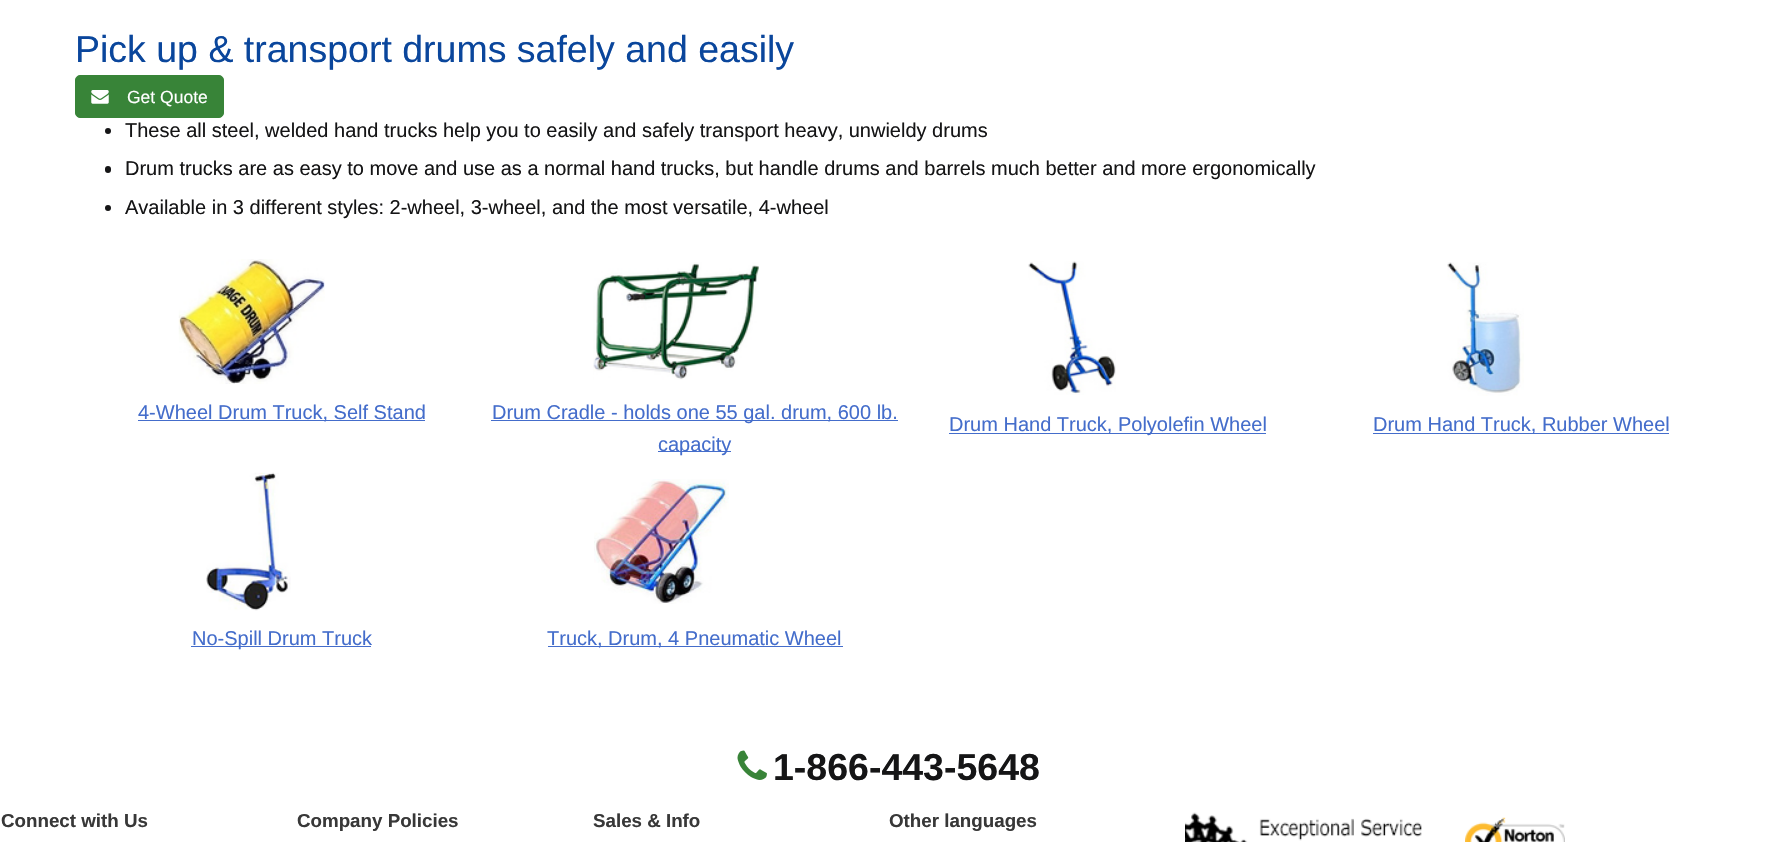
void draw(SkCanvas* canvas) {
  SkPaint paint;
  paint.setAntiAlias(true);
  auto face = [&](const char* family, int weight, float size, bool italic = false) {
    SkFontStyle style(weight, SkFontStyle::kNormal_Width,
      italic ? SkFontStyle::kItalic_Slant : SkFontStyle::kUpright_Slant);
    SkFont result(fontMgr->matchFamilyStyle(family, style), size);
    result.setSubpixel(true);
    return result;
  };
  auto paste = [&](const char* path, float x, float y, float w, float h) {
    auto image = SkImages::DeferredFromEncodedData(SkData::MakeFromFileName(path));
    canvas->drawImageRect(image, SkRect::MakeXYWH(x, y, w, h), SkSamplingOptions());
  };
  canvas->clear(0xffffffff);
  paint.setColor(0xff388438);
  canvas->drawRoundRect(SkRect::MakeXYWH(75.5f, 75.5f, 148, 42), 4.5f, 4.5f, paint);
  paint.setStroke(true);
  paint.setStrokeWidth(1);
  canvas->drawRoundRect(SkRect::MakeXYWH(75.5f, 75.5f, 148, 42), 4.5f, 4.5f, paint);
  paste("img/1.png", 91, 90, 18, 14);
  paint.setStroke(false);
  paint.setColor(0xff151516);
  canvas->drawCircle(108, 131, 3, paint);
  canvas->drawRoundRect(SkRect::MakeXYWH(105, 166, 6, 7), 3, 3, paint);
  canvas->drawCircle(108, 208, 3, paint);
  paste("img/2.png", 178, 259, 147, 125);
  paint.setColor(0xff446dcb);
  canvas->drawRect(SkRect::MakeXYWH(138, 420, 287, 1), paint);
  paste("img/3.png", 593, 262, 166, 118);
  canvas->drawRect(SkRect::MakeXYWH(491, 420, 407, 1), paint);
  canvas->drawRect(SkRect::MakeXYWH(658, 451, 73, 1), paint);
  paste("img/4.png", 1028, 261, 88, 134);
  canvas->drawRect(SkRect::MakeXYWH(949, 433, 317, 1), paint);
  paste("img/5.png", 1447, 262, 77, 134);
  canvas->drawRect(SkRect::MakeXYWH(1373, 433, 296, 1), paint);
  paste("img/6.png", 206, 472, 85, 139);
  canvas->drawRect(SkRect::MakeXYWH(191, 646, 180, 1), paint);
  paste("img/7.png", 594, 479, 135, 125);
  canvas->drawRect(SkRect::MakeXYWH(548, 646, 295, 1), paint);
  paste("img/8.png", 737, 750, 30, 30);
  paste("img/9.png", 1185, 812, 237, 30);
  paste("img/10.png", 1465, 817, 100, 25);
  auto f0 = face("Liberation Sans", 400, 37.5f);
  paint.setColor(0xff0a469c);
  canvas->drawString("Pick up & transport drums safely and easily", 75, 62, f0, paint);
  auto f1 = face("Liberation Sans", 400, 17.5f);
  paint.setColor(0xffffffff);
  canvas->drawString("Get Quote", 127, 103, f1, paint);
  auto f2 = face("Liberation Sans", 400, 20);
  paint.setColor(0xff151516);
  {
    const struct { const char* s; float x, y; } items[] = {
      {"These all steel, welded hand trucks help you to easily and safely transport heavy, unwieldy drums", 125, 137},
      {"Drum trucks are as easy to move and use as a normal hand trucks, but handle drums and barrels much better and more ergonomically", 125, 175},
      {"Available in 3 different styles: 2-wheel, 3-wheel, and the most versatile, 4-wheel", 125, 214},
    };
    for (auto [s, x, y] : items) {
      canvas->drawString(s, x, y, f2, paint);
    }
  }
  paint.setColor(0xff446dcb);
  {
    const struct { const char* s; float x, y; } items[] = {
      {"4-Wheel Drum Truck, Self Stand", 138, 419},
      {"Drum Cradle - holds one 55 gal. drum, 600 lb.", 492, 419},
      {"capacity", 658, 451},
      {"Drum Hand Truck, Polyolefin Wheel", 949, 431},
      {"Drum Hand Truck, Rubber Wheel", 1373, 431},
      {"No-Spill Drum Truck", 192, 645},
      {"Truck, Drum, 4 Pneumatic Wheel", 547, 645},
    };
    for (auto [s, x, y] : items) {
      canvas->drawString(s, x, y, f2, paint);
    }
  }
  auto f3 = face("Liberation Sans", 700, 37.5f);
  paint.setColor(0xff151516);
  canvas->drawString("1-866-443-5648", 773, 780, f3, paint);
  auto f4 = face("Liberation Sans", 700, 18.75f);
  paint.setColor(0xff383838);
  {
    const struct { const char* s; float x, y; } items[] = {
      {"Connect with Us", 1, 827},
      {"Company Policies", 297, 827},
      {"Sales & Info", 593, 827},
      {"Other languages", 889, 827},
    };
    for (auto [s, x, y] : items) {
      canvas->drawString(s, x, y, f4, paint);
    }
  }
}
